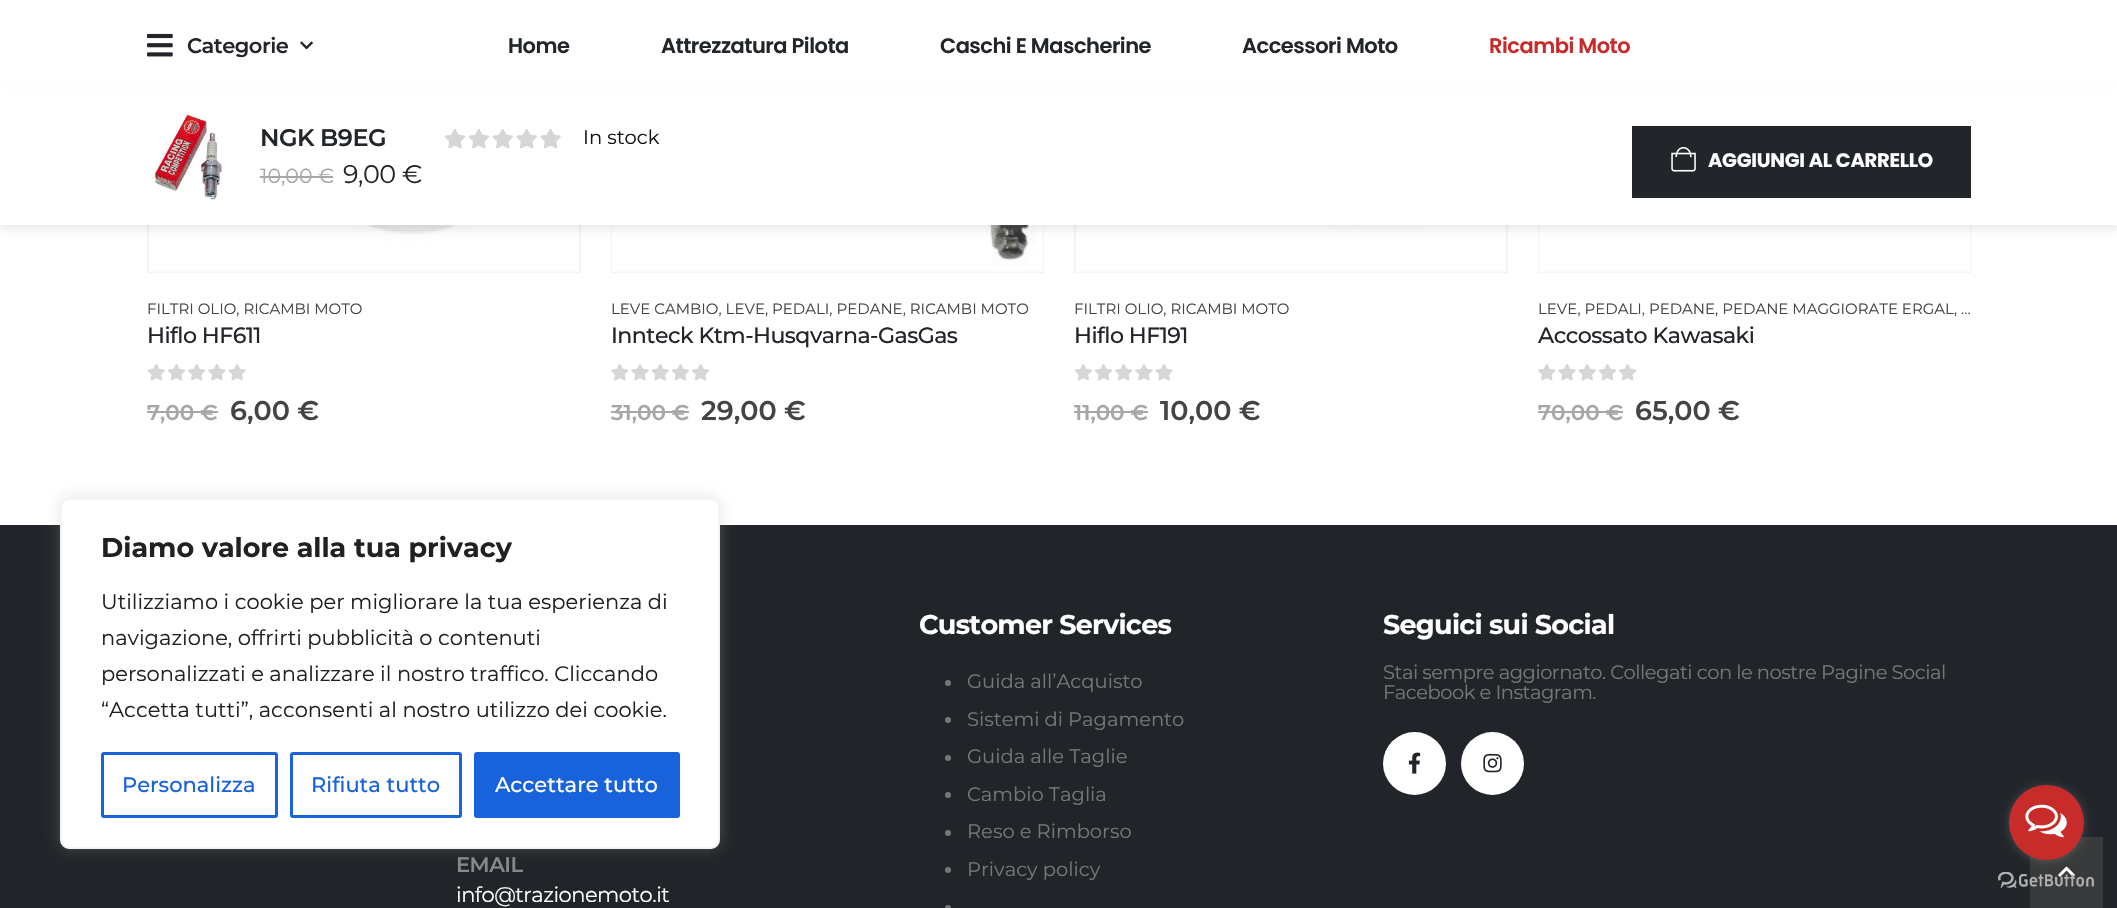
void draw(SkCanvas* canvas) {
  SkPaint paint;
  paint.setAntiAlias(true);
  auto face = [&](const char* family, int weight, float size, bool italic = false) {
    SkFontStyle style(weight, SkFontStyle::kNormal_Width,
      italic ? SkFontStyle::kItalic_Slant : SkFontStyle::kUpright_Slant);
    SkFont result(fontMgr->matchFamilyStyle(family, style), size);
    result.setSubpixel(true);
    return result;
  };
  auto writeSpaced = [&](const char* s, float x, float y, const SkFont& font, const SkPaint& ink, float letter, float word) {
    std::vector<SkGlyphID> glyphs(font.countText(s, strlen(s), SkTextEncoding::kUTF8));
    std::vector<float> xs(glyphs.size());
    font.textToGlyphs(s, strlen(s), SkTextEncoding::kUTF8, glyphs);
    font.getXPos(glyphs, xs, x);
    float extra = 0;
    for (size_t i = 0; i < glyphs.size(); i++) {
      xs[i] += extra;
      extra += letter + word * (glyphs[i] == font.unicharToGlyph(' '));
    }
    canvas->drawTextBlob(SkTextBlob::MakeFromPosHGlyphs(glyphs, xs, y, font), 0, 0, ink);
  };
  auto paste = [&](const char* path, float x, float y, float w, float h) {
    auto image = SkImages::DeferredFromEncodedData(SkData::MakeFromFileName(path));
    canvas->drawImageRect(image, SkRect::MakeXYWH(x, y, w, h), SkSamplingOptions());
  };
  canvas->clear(0xffffffff);
  paint.setStroke(true);
  paint.setStrokeWidth(2);
  paint.setColor(0xfff4f4f4);
  canvas->drawRect(SkRect::MakeXYWH(148, -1, 432, 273), paint);
  canvas->drawRect(SkRect::MakeXYWH(612, -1, 431, 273), paint);
  canvas->drawRect(SkRect::MakeXYWH(1075, -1, 432, 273), paint);
  canvas->drawRect(SkRect::MakeXYWH(1539, -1, 431, 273), paint);
  paint.setStroke(false);
  paint.setColor(0xffffffff);
  canvas->drawRect(SkRect::MakeXYWH(147, 0, 1824, 90), paint);
  paste("img/1.png", 147, 33, 26, 24);
  paste("img/2.png", 300, 41, 13, 9);
  paste("img/6.png", 149, 225, 430, 47);
  paste("img/8.png", 612, 225, 431, 47);
  paste("img/10.png", 1076, 225, 430, 47);
  paste("img/11.png", 1539, 225, 431, 47);
  paint.setColor(0x14000000);
  paint.setMaskFilter(SkMaskFilter::MakeBlur(kNormal_SkBlurStyle, 4));
  canvas->drawRect(SkRect::MakeXYWH(0, 95, 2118, 135), paint);
  paint.setMaskFilter(nullptr);
  paint.setColor(0xffffffff);
  canvas->drawRect(SkRect::MakeXYWH(0, 90, 2117, 135), paint);
  paste("img/3.png", 152, 113, 71, 87);
  paint.setColor(0xffa7a7a7);
  canvas->drawRect(SkRect::MakeXYWH(260, 176, 73, 2), paint);
  paste("img/4.png", 444, 129, 117, 20);
  paint.setColor(0xff222529);
  canvas->drawRect(SkRect::MakeXYWH(1632, 126, 339, 72), paint);
  paste("img/5.png", 1671, 147, 25, 25);
  paste("img/7.png", 147, 364, 99, 17);
  paint.setColor(0xffa7a7a7);
  canvas->drawRect(SkRect::MakeXYWH(147, 411, 71, 2), paint);
  paste("img/9.png", 611, 364, 99, 17);
  canvas->drawRect(SkRect::MakeXYWH(611, 411, 78, 2), paint);
  paste("img/7.png", 1074, 364, 99, 17);
  canvas->drawRect(SkRect::MakeXYWH(1074, 411, 74, 2), paint);
  paste("img/9.png", 1538, 364, 99, 17);
  canvas->drawRect(SkRect::MakeXYWH(1538, 411, 85, 2), paint);
  paint.setColor(0xff212529);
  canvas->drawRect(SkRect::MakeXYWH(0, 525, 2117, 383), paint);
  paint.setColor(0xff777777);
  canvas->drawCircle(948, 683, 3, paint);
  canvas->drawCircle(948, 720, 3, paint);
  canvas->drawCircle(948, 758, 3, paint);
  canvas->drawCircle(948, 795, 3, paint);
  canvas->drawCircle(948, 833, 3, paint);
  canvas->drawCircle(948, 870, 3, paint);
  canvas->drawCircle(948, 908, 3, paint);
  paint.setColor(0xffffffff);
  canvas->drawCircle(1414.5f, 763.5f, 31.5f, paint);
  paste("img/12.png", 1408, 752, 13, 22);
  canvas->drawCircle(1492.5f, 763.5f, 31.5f, paint);
  paste("img/13.png", 1483, 753, 19, 20);
  paint.setColor(0x4dacabab);
  paint.setMaskFilter(SkMaskFilter::MakeBlur(kNormal_SkBlurStyle, 7.5f));
  canvas->drawRoundRect(SkRect::MakeXYWH(60, 497, 660, 351), 9, 9, paint);
  paint.setMaskFilter(nullptr);
  paint.setColor(0xffffffff);
  canvas->drawRoundRect(SkRect::MakeXYWH(61, 499, 658, 349), 8, 8, paint);
  paint.setStroke(true);
  paint.setColor(0xfff4f4f4);
  canvas->drawRoundRect(SkRect::MakeXYWH(61, 499, 658, 349), 8, 8, paint);
  paint.setStrokeWidth(3);
  paint.setColor(0xff1863dc);
  canvas->drawRoundRect(SkRect::MakeXYWH(102.5f, 753.5f, 174, 63), 1.5f, 1.5f, paint);
  canvas->drawRoundRect(SkRect::MakeXYWH(291.5f, 753.5f, 169, 63), 1.5f, 1.5f, paint);
  paint.setStroke(false);
  canvas->drawRoundRect(SkRect::MakeXYWH(475.5f, 753.5f, 203, 63), 1.5f, 1.5f, paint);
  paint.setStroke(true);
  canvas->drawRoundRect(SkRect::MakeXYWH(475.5f, 753.5f, 203, 63), 1.5f, 1.5f, paint);
  paint.setStroke(false);
  paint.setColor(0xff38393a);
  canvas->drawRect(SkRect::MakeXYWH(2030, 837, 73, 71), paint);
  paste("img/16.png", 2058, 866, 17, 11);
  paste("img/15.png", 1998, 872, 96, 16);
  paint.setColor(0x66888888);
  paint.setMaskFilter(SkMaskFilter::MakeBlur(kNormal_SkBlurStyle, 5));
  canvas->drawRoundRect(SkRect::MakeXYWH(2009, 786, 75, 75), 37.5f, 37.5f, paint);
  paint.setMaskFilter(nullptr);
  paint.setColor(0xffc72c2b);
  canvas->drawCircle(2046.5f, 822.5f, 37.5f, paint);
  paste("img/14.png", 2025, 804, 42, 34);
  auto f0 = face("Montserrat", 600, 21);
  paint.setColor(0xff222529);
  writeSpaced("Categorie", 187, 53, f0, paint, -0.5f, 0);
  auto f1 = face("Poppins", 600, 21);
  {
    const struct { const char* s; float x, y; } items[] = {
      {"Home", 508, 53},
      {"Attrezzatura Pilota", 661, 53},
      {"Caschi E Mascherine", 940, 53},
      {"Accessori Moto", 1242, 53},
    };
    for (auto [s, x, y] : items) {
      writeSpaced(s, x, y, f1, paint, -0.5f, 0);
    }
  }
  paint.setColor(0xffc72c2b);
  writeSpaced("Ricambi Moto", 1489, 53, f1, paint, -0.5f, 0);
  auto f2 = face("Montserrat", 600, 24);
  paint.setColor(0xff222529);
  writeSpaced("NGK B9EG", 260, 146, f2, paint, -0.5f, 0);
  auto f3 = face("Montserrat", 400, 20.5f);
  paint.setColor(0xffa7a7a7);
  canvas->drawString("10,00 €", 260, 183, f3, paint);
  auto f4 = face("Montserrat", 400, 25.5f);
  paint.setColor(0xff222529);
  writeSpaced("9,00 €", 343, 183, f4, paint, -0.5f, 0);
  auto f5 = face("Montserrat", 400, 19.5f);
  paint.setColor(0xff111111);
  canvas->drawString("In stock", 583, 144, f5, paint);
  auto f6 = face("Poppins", 700, 19.5f);
  paint.setColor(0xffffffff);
  writeSpaced("AGGIUNGI AL CARRELLO", 1708, 167, f6, paint, -0.25f, 0);
  auto f7 = face("Montserrat", 400, 15);
  paint.setColor(0xff444444);
  canvas->drawString("FILTRI OLIO, RICAMBI MOTO", 147, 314, f7, paint);
  auto f8 = face("Montserrat", 500, 22.1f);
  paint.setColor(0xff222529);
  writeSpaced("Hiflo HF611", 147, 343, f8, paint, -0.55f, 0);
  auto f9 = face("Montserrat", 600, 21.5f);
  paint.setColor(0xffa7a7a7);
  canvas->drawString("7,00 €", 147, 420, f9, paint);
  auto f10 = face("Montserrat", 600, 27);
  paint.setColor(0xff444444);
  canvas->drawString("6,00 €", 230, 420, f10, paint);
  canvas->drawString("LEVE CAMBIO, LEVE, PEDALI, PEDANE, RICAMBI MOTO", 611, 314, f7, paint);
  paint.setColor(0xff222529);
  writeSpaced("Innteck Ktm-Husqvarna-GasGas", 611, 343, f8, paint, -0.55f, 0);
  paint.setColor(0xffa7a7a7);
  canvas->drawString("31,00 €", 611, 420, f9, paint);
  paint.setColor(0xff444444);
  canvas->drawString("29,00 €", 701, 420, f10, paint);
  canvas->drawString("FILTRI OLIO, RICAMBI MOTO", 1074, 314, f7, paint);
  paint.setColor(0xff222529);
  writeSpaced("Hiflo HF191", 1074, 343, f8, paint, -0.55f, 0);
  paint.setColor(0xffa7a7a7);
  canvas->drawString("11,00 €", 1074, 420, f9, paint);
  paint.setColor(0xff444444);
  canvas->drawString("10,00 €", 1160, 420, f10, paint);
  canvas->drawString("LEVE, PEDALI, PEDANE, PEDANE MAGGIORATE ERGAL, …", 1538, 314, f7, paint);
  paint.setColor(0xff222529);
  writeSpaced("Accossato Kawasaki", 1538, 343, f8, paint, -0.55f, 0);
  paint.setColor(0xffa7a7a7);
  canvas->drawString("70,00 €", 1538, 420, f9, paint);
  paint.setColor(0xff444444);
  canvas->drawString("65,00 €", 1635, 420, f10, paint);
  auto f11 = face("Montserrat", 700, 27);
  paint.setColor(0xffffffff);
  writeSpaced("Customer Services", 919, 634, f11, paint, -0.7f, 0);
  paint.setColor(0xff777777);
  {
    const struct { const char* s; float x, y; } items[] = {
      {"Guida all’Acquisto", 967, 688},
      {"Sistemi di Pagamento", 967, 726},
      {"Guida alle Taglie", 967, 763},
      {"Cambio Taglia", 967, 801},
      {"Reso e Rimborso", 967, 838},
      {"Privacy policy", 967, 876},
    };
    for (auto [s, x, y] : items) {
      canvas->drawString(s, x, y, f5, paint);
    }
  }
  paint.setColor(0xffffffff);
  writeSpaced("Seguici sui Social", 1383, 634, f11, paint, -0.7f, 0);
  paint.setColor(0xff777777);
  writeSpaced("Stai sempre aggiornato. Collegati con le nostre Pagine Social", 1383, 679, f5, paint, -0.5f, 0);
  writeSpaced("Facebook e Instagram.", 1383, 699, f5, paint, -0.5f, 0);
  paint.setColor(0xff888888);
  writeSpaced("EMAIL", 456, 872, f0, paint, -0.5f, 0);
  auto f12 = face("Montserrat", 400, 21);
  paint.setColor(0xffffffff);
  writeSpaced("info@trazionemoto.it", 456, 902, f12, paint, -0.5f, 0);
  paint.setColor(0xff212121);
  canvas->drawString("Diamo valore alla tua privacy", 101, 557, f11, paint);
  {
    const struct { const char* s; float x, y; } items[] = {
      {"Utilizziamo i cookie per migliorare la tua esperienza di", 101, 609},
      {"navigazione, offrirti pubblicità o contenuti", 101, 645},
      {"personalizzati e analizzare il nostro traffico. Cliccando", 101, 681},
      {"“Accetta tutti”, acconsenti al nostro utilizzo dei cookie.", 101, 717},
    };
    for (auto [s, x, y] : items) {
      canvas->drawString(s, x, y, f12, paint);
    }
  }
  auto f13 = face("Montserrat", 500, 21);
  paint.setColor(0xff1863dc);
  canvas->drawString("Personalizza", 122, 792, f13, paint);
  canvas->drawString("Rifiuta tutto", 311, 792, f13, paint);
  paint.setColor(0xffffffff);
  canvas->drawString("Accettare tutto", 495, 792, f13, paint);
}
